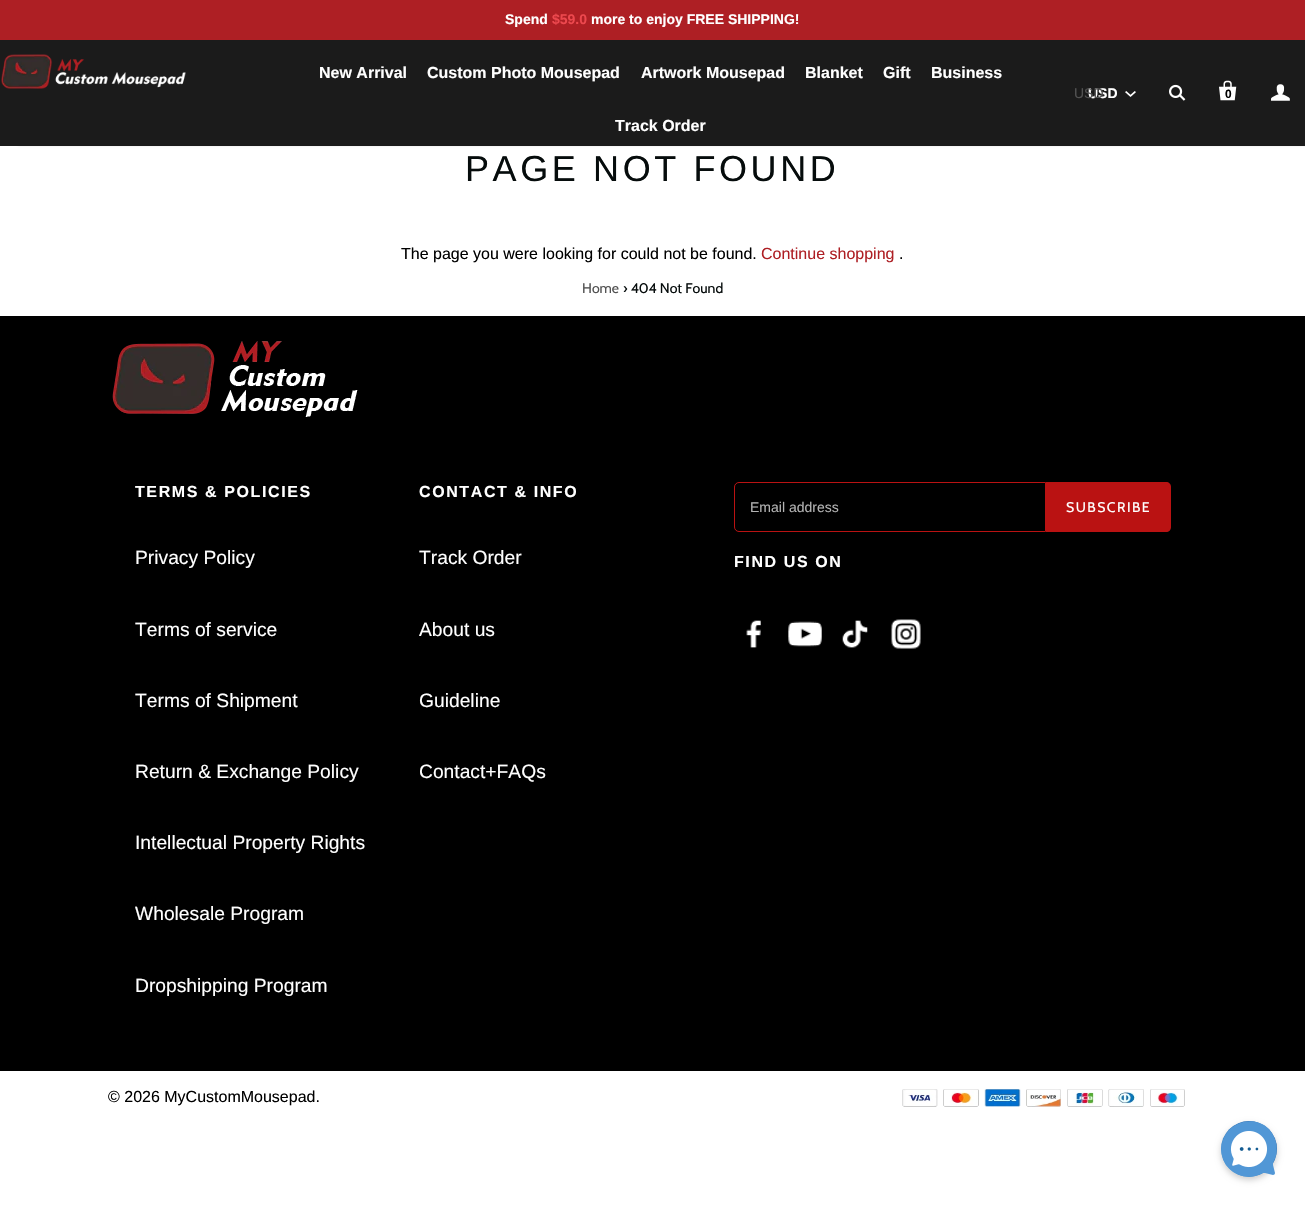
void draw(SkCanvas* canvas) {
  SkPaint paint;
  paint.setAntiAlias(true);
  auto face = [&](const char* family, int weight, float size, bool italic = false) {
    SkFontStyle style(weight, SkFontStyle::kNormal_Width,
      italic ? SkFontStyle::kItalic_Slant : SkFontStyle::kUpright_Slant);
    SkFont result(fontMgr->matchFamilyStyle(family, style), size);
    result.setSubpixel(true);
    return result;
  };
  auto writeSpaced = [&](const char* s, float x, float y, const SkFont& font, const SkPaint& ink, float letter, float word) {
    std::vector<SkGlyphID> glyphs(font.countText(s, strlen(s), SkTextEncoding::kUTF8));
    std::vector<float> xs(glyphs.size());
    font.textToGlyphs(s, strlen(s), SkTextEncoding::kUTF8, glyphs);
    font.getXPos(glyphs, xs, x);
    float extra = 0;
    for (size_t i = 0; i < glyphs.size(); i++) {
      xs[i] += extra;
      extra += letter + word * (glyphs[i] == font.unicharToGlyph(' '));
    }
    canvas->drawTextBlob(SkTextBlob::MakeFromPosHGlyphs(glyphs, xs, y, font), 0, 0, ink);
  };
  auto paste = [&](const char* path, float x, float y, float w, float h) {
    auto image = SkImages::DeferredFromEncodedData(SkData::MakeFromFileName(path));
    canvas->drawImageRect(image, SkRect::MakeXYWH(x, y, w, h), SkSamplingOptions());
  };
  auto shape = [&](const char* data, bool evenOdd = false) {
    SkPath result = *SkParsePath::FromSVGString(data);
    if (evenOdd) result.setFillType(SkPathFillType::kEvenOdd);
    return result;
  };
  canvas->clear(0xffffffff);
  paint.setColor(0x1a000000);
  paint.setMaskFilter(SkMaskFilter::MakeBlur(kNormal_SkBlurStyle, 1));
  canvas->drawRect(SkRect::MakeXYWH(18, 0, 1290, 146), paint);
  paint.setMaskFilter(nullptr);
  paint.setColor(0xffae1f24);
  canvas->drawRect(SkRect::MakeXYWH(0, 0, 1305, 40), paint);
  paint.setColor(0xff1b1b1b);
  canvas->drawRect(SkRect::MakeXYWH(0, 40, 1305, 106), paint);
  paste("img/1.png", 1, 54, 185, 35);
  paste("img/2.png", 1125, 91, 11, 6);
  paste("img/3.png", 1169, 84, 17, 17);
  paste("img/4.png", 1219, 80, 18, 21);
  paste("img/5.png", 1271, 84, 19, 17);
  paint.setColor(0xff000000);
  canvas->drawRect(SkRect::MakeXYWH(0, 316, 1305, 755), paint);
  paste("img/6.png", 112, 341, 246, 76);
  paint.setStroke(true);
  paint.setStrokeWidth(1);
  paint.setColor(0xffba1212);
  canvas->drawPath(shape("M739 482.5H1045.5V531.5H739C736.5 531.5 734.5 529.5 734.5 527V487C734.5 484.5 736.5 482.5 739 482.5Z"), paint);
  paint.setStroke(false);
  canvas->drawPath(shape("M1046 482H1166C1169 482 1171 484 1171 487V527C1171 530 1169 532 1166 532H1046Z"), paint);
  paste("img/7.png", 746, 620, 15, 28);
  paste("img/8.png", 788, 621, 34, 26);
  paste("img/9.png", 842, 620, 26, 28);
  paste("img/10.png", 891, 619, 30, 30);
  paste("img/11.png", 902, 1089, 283, 18);
  paint.setColor(0x33000000);
  paint.setMaskFilter(SkMaskFilter::MakeBlur(kNormal_SkBlurStyle, 3));
  canvas->drawRoundRect(SkRect::MakeXYWH(1221, 1124, 56, 56), 28, 28, paint);
  paint.setMaskFilter(nullptr);
  {
    const SkColor colors[] = {0xff50a4e5, 0xff1e5799};
    const float stops[] = {0, 1};
    const SkPoint ends[] = {{1221, 1177}, {1277, 1121}};
    paint.setShader(SkGradientShader::MakeLinear(ends, colors, stops, 2, SkTileMode::kClamp));
    paint.setAlpha(255);
  }
  canvas->drawCircle(1249, 1149, 28, paint);
  paint.setShader(nullptr);
  paint.setColor(0xff5197d6);
  canvas->drawPath(shape("M1269 1129C1258 1118 1240 1119 1229 1130C1219 1141 1219 1158 1229 1168C1238 1178 1252 1179 1263 1173H1265L1273 1175C1274 1175 1275 1174 1275 1173L1273 1165V1163C1279 1153 1278 1139 1269 1129Z"), paint);
  paste("img/12.png", 1230, 1131, 38, 37);
  paste("img/13.png", 1239, 1147, 20, 4);
  auto f0 = face("Liberation Sans", 700, 14);
  paint.setColor(0xffffffff);
  canvas->drawString("Spend", 505, 24, f0, paint);
  paint.setColor(0xffed484e);
  canvas->drawString("$59.0", 552, 24, f0, paint);
  paint.setColor(0xffffffff);
  canvas->drawString("more to enjoy FREE SHIPPING!", 591, 24, f0, paint);
  auto f1 = face("Liberation Sans", 700, 16);
  {
    const struct { const char* s; float x, y; } items[] = {
      {"New Arrival", 319, 78},
      {"Custom Photo Mousepad", 427, 78},
      {"Artwork Mousepad", 641, 78},
      {"Blanket", 805, 78},
      {"Gift", 883, 78},
      {"Business", 931, 78},
      {"Track Order", 615, 131},
    };
    for (auto [s, x, y] : items) {
      canvas->drawString(s, x, y, f1, paint);
    }
  }
  canvas->drawString("USD", 1088, 98, f0, paint);
  auto f2 = face("Liberation Sans", 400, 14);
  paint.setColor(0xff525252);
  canvas->drawString("USD", 1074, 98, f2, paint);
  auto f3 = face("Liberation Sans", 700, 12);
  paint.setColor(0xff000000);
  canvas->drawString("0", 1225, 98, f3, paint);
  auto f4 = face("Liberation Sans", 400, 36);
  paint.setColor(0xff060c0c);
  writeSpaced("PAGE NOT FOUND", 465, 181, f4, paint, 3.6f, 0);
  auto f5 = face("Liberation Sans", 400, 16);
  paint.setColor(0xff000000);
  canvas->drawString("The page you were looking for could not be found.", 401, 259, f5, paint);
  paint.setColor(0xffae1f24);
  canvas->drawString("Continue shopping", 761, 259, f5, paint);
  paint.setColor(0xff000000);
  canvas->drawString(".", 899, 259, f5, paint);
  auto f6 = face("Cabin", 400, 14);
  paint.setColor(0xff525252);
  canvas->drawString("Home", 582, 293, f6, paint);
  paint.setColor(0xff060c0c);
  canvas->drawString("› 404 Not Found", 623, 293, f6, paint);
  paint.setColor(0xffffffff);
  writeSpaced("TERMS & POLICIES", 135, 497, f1, paint, 1.6f, 0);
  auto f7 = face("Liberation Sans", 400, 19.25f);
  {
    const struct { const char* s; float x, y; } items[] = {
      {"Privacy Policy", 135, 564},
      {"Terms of service", 135, 636},
      {"Terms of Shipment", 135, 707},
      {"Return & Exchange Policy", 135, 778},
      {"Intellectual Property Rights", 135, 849},
      {"Wholesale Program", 135, 920},
      {"Dropshipping Program", 135, 992},
    };
    for (auto [s, x, y] : items) {
      canvas->drawString(s, x, y, f7, paint);
    }
  }
  writeSpaced("CONTACT & INFO", 419, 497, f1, paint, 1.6f, 0);
  {
    const struct { const char* s; float x, y; } items[] = {
      {"Track Order", 419, 564},
      {"About us", 419, 636},
      {"Guideline", 419, 707},
      {"Contact+FAQs", 419, 778},
    };
    for (auto [s, x, y] : items) {
      canvas->drawString(s, x, y, f7, paint);
    }
  }
  paint.setColor(0xffb3b3b3);
  canvas->drawString("Email address", 750, 512, f2, paint);
  paint.setColor(0xffffffff);
  writeSpaced("SUBSCRIBE", 1066, 512, f6, paint, 1.5f, 0);
  writeSpaced("FIND US ON", 734, 567, f1, paint, 1.6f, 0);
  paint.setColor(0xff000000);
  canvas->drawString("© 2026 MyCustomMousepad.", 108, 1102, f5, paint);
}
